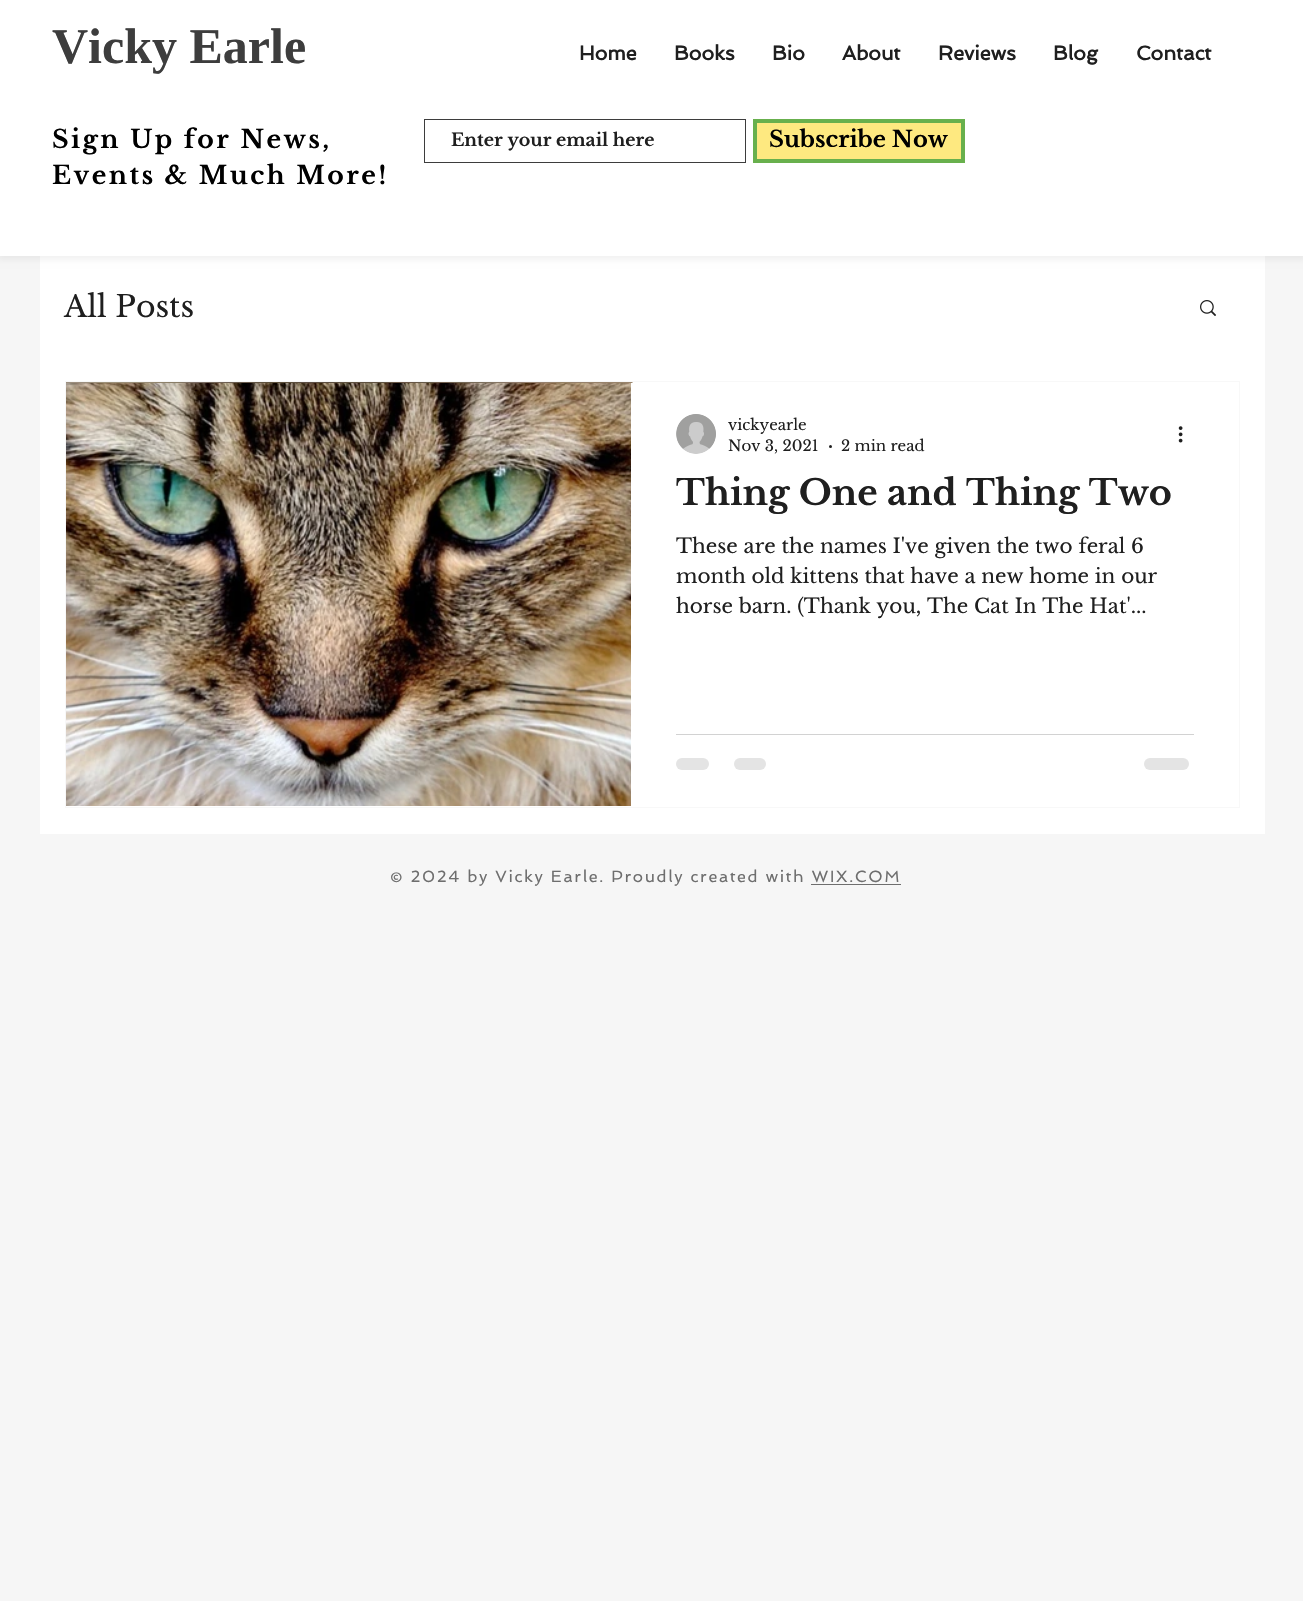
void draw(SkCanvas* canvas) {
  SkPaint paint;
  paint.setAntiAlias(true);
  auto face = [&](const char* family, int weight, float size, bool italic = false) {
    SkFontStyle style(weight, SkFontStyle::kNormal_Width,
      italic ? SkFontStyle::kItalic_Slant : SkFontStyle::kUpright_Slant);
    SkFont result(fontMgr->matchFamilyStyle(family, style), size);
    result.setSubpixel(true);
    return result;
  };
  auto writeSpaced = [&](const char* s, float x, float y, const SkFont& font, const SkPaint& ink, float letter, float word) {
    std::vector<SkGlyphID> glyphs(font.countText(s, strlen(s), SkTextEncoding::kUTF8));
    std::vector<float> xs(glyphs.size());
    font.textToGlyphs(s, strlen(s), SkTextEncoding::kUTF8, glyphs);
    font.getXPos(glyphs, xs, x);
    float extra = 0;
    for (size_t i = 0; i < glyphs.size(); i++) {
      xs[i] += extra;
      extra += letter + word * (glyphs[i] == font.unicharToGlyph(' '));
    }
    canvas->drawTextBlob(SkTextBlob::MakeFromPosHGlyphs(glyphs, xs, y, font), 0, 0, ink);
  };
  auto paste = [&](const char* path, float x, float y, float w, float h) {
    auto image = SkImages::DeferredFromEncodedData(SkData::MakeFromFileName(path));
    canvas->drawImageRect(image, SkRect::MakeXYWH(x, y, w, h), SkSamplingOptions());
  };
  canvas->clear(0xfff6f6f6);
  paint.setColor(0xffffffff);
  canvas->drawRect(SkRect::MakeXYWH(40, 256, 1225, 578), paint);
  paint.setColor(0x0d000000);
  paint.setMaskFilter(SkMaskFilter::MakeBlur(kNormal_SkBlurStyle, 3));
  canvas->drawRect(SkRect::MakeXYWH(-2, -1, 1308, 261), paint);
  paint.setMaskFilter(nullptr);
  paint.setColor(0xffffffff);
  canvas->drawRect(SkRect::MakeXYWH(0, 0, 1303, 256), paint);
  paint.setStroke(true);
  paint.setStrokeWidth(1);
  paint.setColor(0xff3d3d3d);
  canvas->drawRect(SkRect::MakeXYWH(424.5f, 119.5f, 321, 43), paint);
  paint.setStroke(false);
  paint.setColor(0xfffee980);
  canvas->drawRect(SkRect::MakeXYWH(755, 121, 208, 40), paint);
  paint.setStroke(true);
  paint.setStrokeWidth(4);
  paint.setColor(0xff68b04d);
  canvas->drawRect(SkRect::MakeXYWH(755, 121, 208, 40), paint);
  paste("img/1.png", 1200, 300, 16, 16);
  paint.setStrokeWidth(1);
  paint.setColor(0xfff8f8f8);
  canvas->drawRect(SkRect::MakeXYWH(65.5f, 381.5f, 1174, 426), paint);
  paste("img/2.png", 66, 382, 567, 1);
  paste("img/3.png", 66, 383, 565, 423);
  paste("img/4.png", 676, 414, 40, 40);
  paint.setStroke(false);
  paint.setColor(0xff1f1f1f);
  canvas->drawCircle(830.5f, 446.5f, 1.5f, paint);
  paste("img/5.png", 1178, 426, 5, 17);
  paint.setColor(0xffd2d2d2);
  canvas->drawRect(SkRect::MakeXYWH(676, 734, 518, 1), paint);
  paint.setColor(0xffe4e4e4);
  canvas->drawRoundRect(SkRect::MakeXYWH(676, 758, 33, 12), 6, 6, paint);
  canvas->drawRoundRect(SkRect::MakeXYWH(734, 758, 32, 12), 6, 6, paint);
  canvas->drawRoundRect(SkRect::MakeXYWH(1144, 758, 45, 12), 6, 6, paint);
  paint.setColor(0xff6e6e6e);
  canvas->drawRect(SkRect::MakeXYWH(811, 884, 90, 1), paint);
  auto f0 = face("Liberation Serif", 700, 50);
  paint.setColor(0xff3d3d3d);
  canvas->drawString("Vicky Earle", 52, 63, f0, paint);
  auto f1 = face("Spinnaker", 700, 20);
  paint.setColor(0xff1f1f1f);
  {
    const struct { const char* s; float x, y; } items[] = {
      {"Home", 579, 60},
      {"Books", 674, 60},
      {"Bio", 772, 60},
      {"About", 842, 60},
      {"Reviews", 938, 60},
      {"Blog", 1053, 60},
      {"Contact", 1136, 60},
    };
    for (auto [s, x, y] : items) {
      canvas->drawString(s, x, y, f1, paint);
    }
  }
  auto f2 = face("Libre Baskerville", 700, 25);
  paint.setColor(0xff000000);
  writeSpaced("Sign Up for News,", 52, 148, f2, paint, 2.5f, 0);
  writeSpaced("Events & Much More!", 52, 184, f2, paint, 2.5f, 0);
  auto f3 = face("Libre Baskerville", 700, 17.5f);
  paint.setColor(0xff1f1f1f);
  canvas->drawString("Enter your email here", 451, 146, f3, paint);
  auto f4 = face("Libre Baskerville", 700, 22.5f);
  paint.setColor(0xff000000);
  canvas->drawString("Subscribe Now", 769, 147, f4, paint);
  auto f5 = face("Libre Baskerville", 400, 30);
  paint.setColor(0xff1f1f1f);
  canvas->drawString("All Posts", 64, 317, f5, paint);
  auto f6 = face("Libre Baskerville", 400, 15);
  {
    const struct { const char* s; float x, y; } items[] = {
      {"vickyearle", 728, 430},
      {"Nov 3, 2021", 728, 451},
      {"2 min read", 841, 451},
    };
    for (auto [s, x, y] : items) {
      canvas->drawString(s, x, y, f6, paint);
    }
  }
  auto f7 = face("Libre Baskerville", 700, 35);
  canvas->drawString("Thing One and Thing Two", 676, 505, f7, paint);
  auto f8 = face("Libre Baskerville", 400, 20);
  {
    const struct { const char* s; float x, y; } items[] = {
      {"These are the names I've given the two feral 6", 676, 553},
      {"month old kittens that have a new home in our", 676, 583},
      {"horse barn. (Thank you, The Cat In The Hat'...", 676, 613},
    };
    for (auto [s, x, y] : items) {
      canvas->drawString(s, x, y, f8, paint);
    }
  }
  auto f9 = face("Spinnaker", 400, 16.25f);
  paint.setColor(0xff6e6e6e);
  writeSpaced("© 2024 by Vicky Earle. Proudly created with WIX.COM", 390, 882, f9, paint, 1.62f, 0);
}
